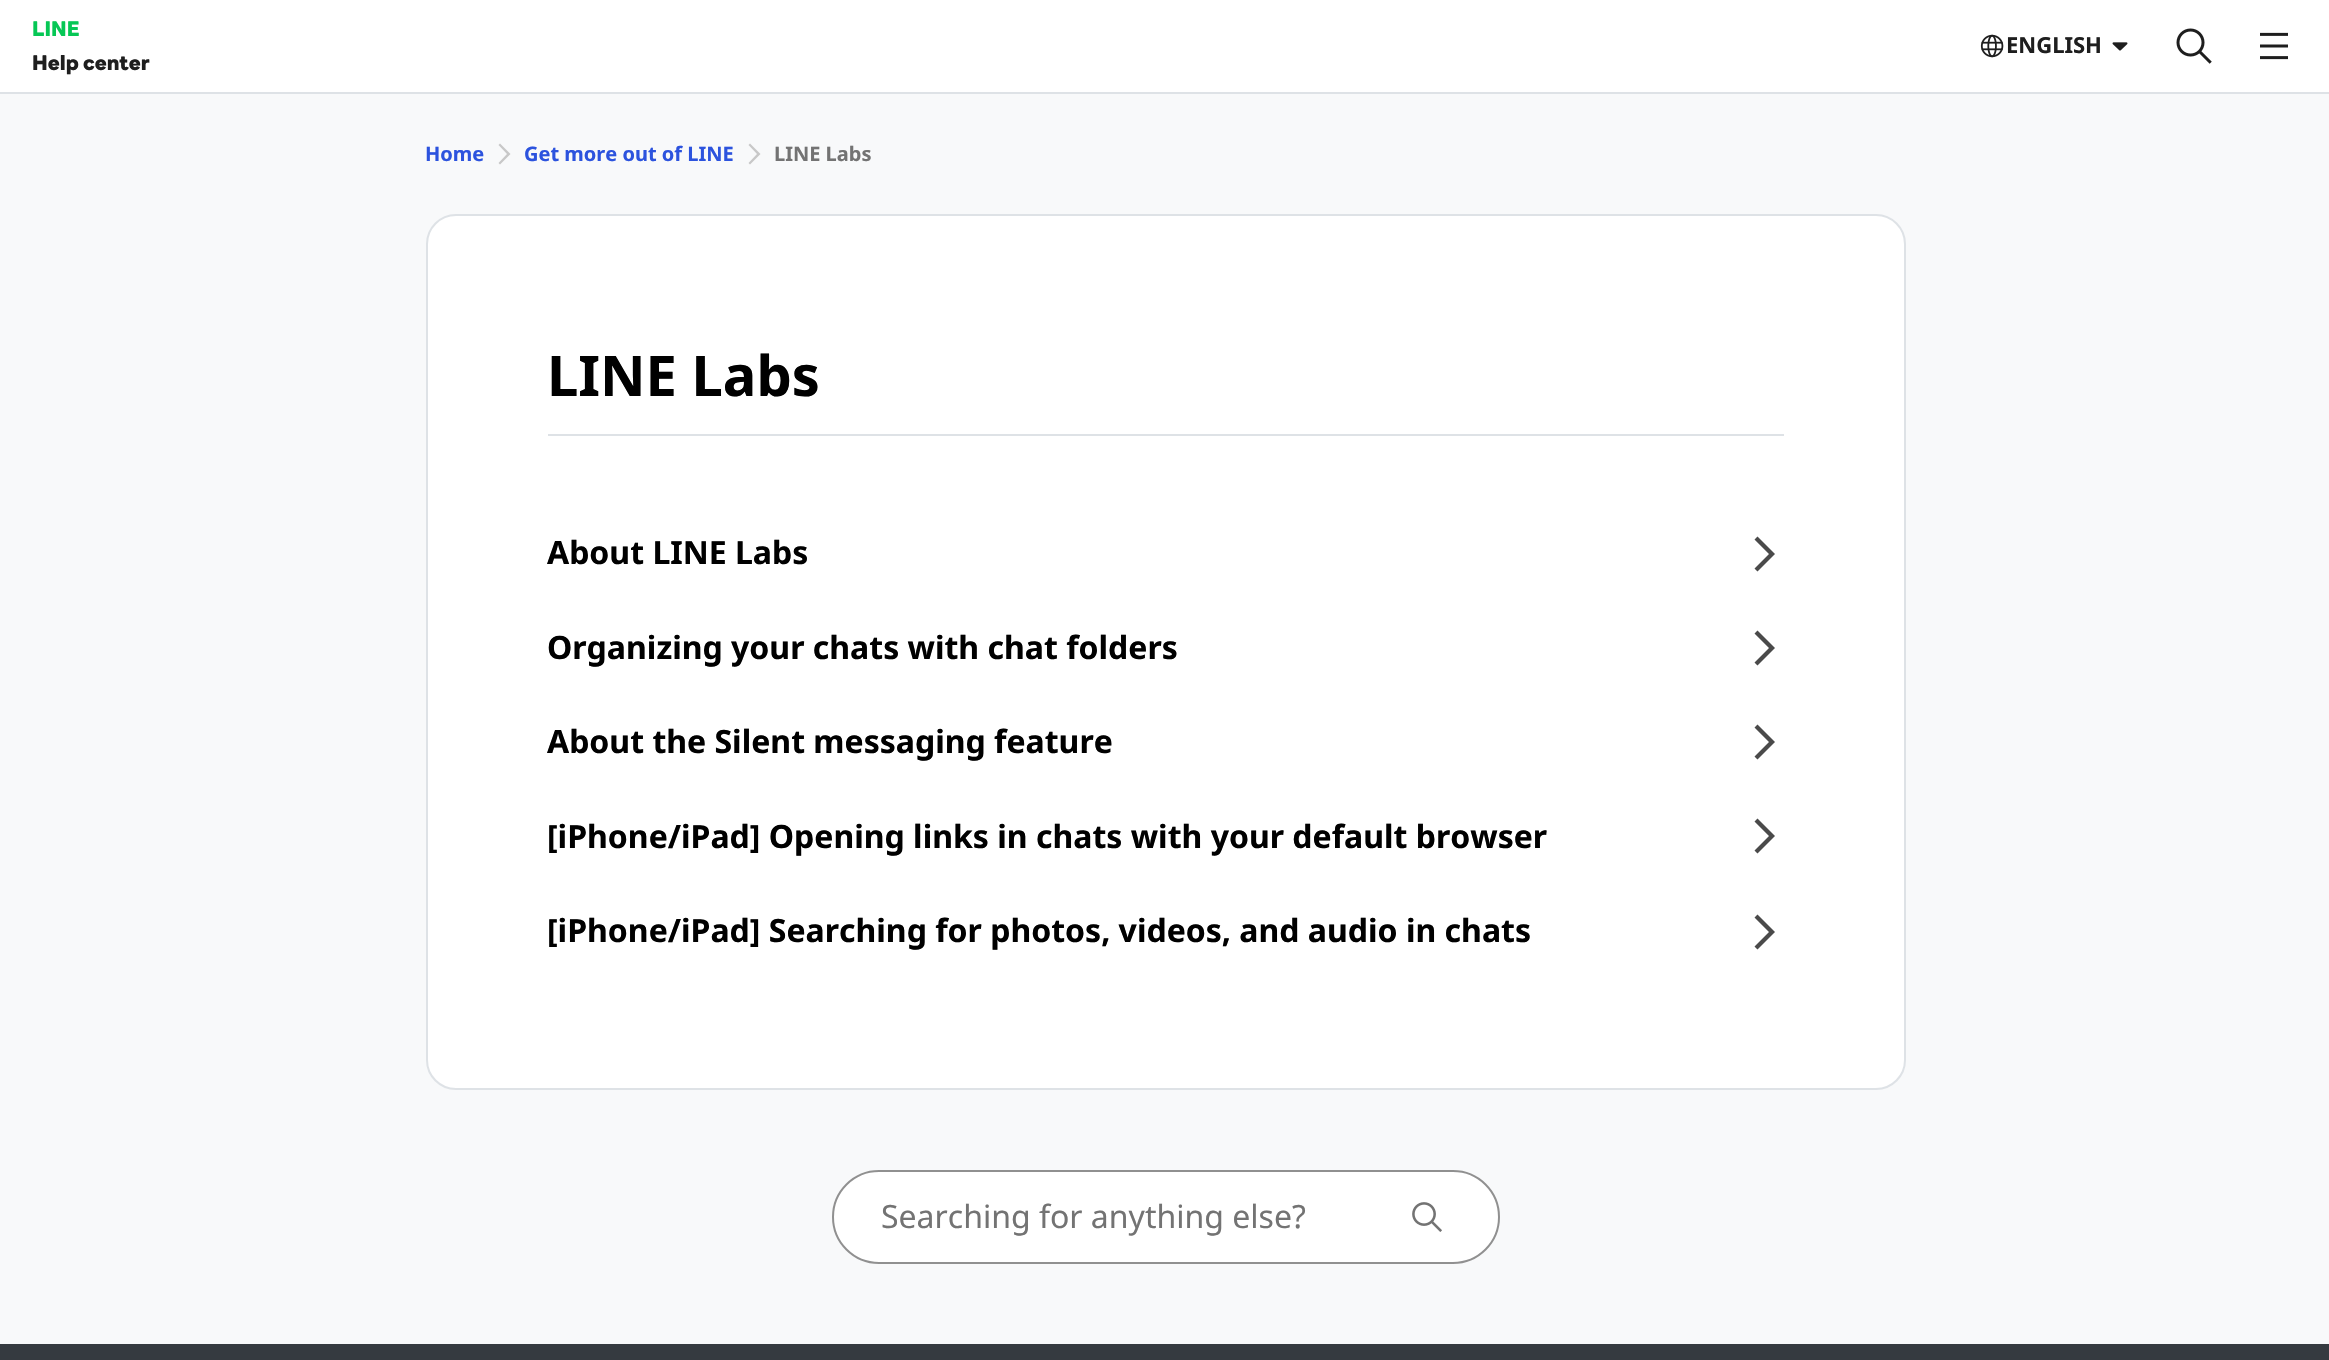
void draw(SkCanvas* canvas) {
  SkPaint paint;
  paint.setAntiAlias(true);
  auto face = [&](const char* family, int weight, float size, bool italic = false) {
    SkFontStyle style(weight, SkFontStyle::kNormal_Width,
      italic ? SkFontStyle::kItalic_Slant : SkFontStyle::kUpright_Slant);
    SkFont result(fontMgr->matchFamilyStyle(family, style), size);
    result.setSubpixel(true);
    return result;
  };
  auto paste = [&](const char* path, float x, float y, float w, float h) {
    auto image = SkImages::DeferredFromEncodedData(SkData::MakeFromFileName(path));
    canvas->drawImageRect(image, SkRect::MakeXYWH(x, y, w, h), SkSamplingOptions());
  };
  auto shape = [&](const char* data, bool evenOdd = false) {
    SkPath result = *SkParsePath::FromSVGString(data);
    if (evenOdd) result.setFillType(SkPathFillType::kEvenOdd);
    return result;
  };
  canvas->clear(0xffffffff);
  paint.setColor(0xffdee2e6);
  canvas->drawRect(SkRect::MakeXYWH(0, 92, 2329, 2), paint);
  paste("img/1.png", 1980, 34, 24, 24);
  paste("img/2.png", 2112, 42, 16, 9);
  paste("img/3.png", 2176, 28, 36, 36);
  paste("img/4.png", 2260, 32, 28, 28);
  paint.setColor(0xfff8f9fa);
  canvas->drawRect(SkRect::MakeXYWH(0, 94, 2329, 1250), paint);
  paint.setColor(0xffc8c8c8);
  canvas->drawPath(shape("M500 143.5L510.5 154L500 164.5L498.5 163L507 154L498.5 145Z"), paint);
  canvas->drawPath(shape("M750 143.5L760.5 154L750 164.5L748.5 163L757 154L748.5 145Z"), paint);
  paint.setColor(0xffffffff);
  canvas->drawRoundRect(SkRect::MakeXYWH(427, 215, 1478, 874), 29, 29, paint);
  paint.setStroke(true);
  paint.setStrokeWidth(2);
  paint.setColor(0xffdee2e6);
  canvas->drawRoundRect(SkRect::MakeXYWH(427, 215, 1478, 874), 29, 29, paint);
  paint.setStroke(false);
  canvas->drawRect(SkRect::MakeXYWH(548, 434, 1236, 2), paint);
  paint.setColor(0xff4a4a4a);
  canvas->drawPath(shape("M1757.5 536.5L1775 554L1757.5 571.5L1754.5 568.5L1769 554L1754.5 539.5Z"), paint);
  canvas->drawPath(shape("M1757.5 630.5L1775 648L1757.5 665.5L1754.5 662.5L1769 648L1754.5 633.5Z"), paint);
  canvas->drawPath(shape("M1757.5 724.5L1775 742L1757.5 759.5L1754.5 756.5L1769 742L1754.5 727.5Z"), paint);
  canvas->drawPath(shape("M1757.5 818.5L1775 836L1757.5 853.5L1754.5 850.5L1769 836L1754.5 821.5Z"), paint);
  canvas->drawPath(shape("M1757.5 914.5L1775 932L1757.5 949.5L1754.5 946.5L1769 932L1754.5 917.5Z"), paint);
  paint.setColor(0xffffffff);
  canvas->drawRoundRect(SkRect::MakeXYWH(833, 1171, 666, 92), 46, 46, paint);
  paint.setStroke(true);
  paint.setColor(0xff909090);
  canvas->drawRoundRect(SkRect::MakeXYWH(833, 1171, 666, 92), 46, 46, paint);
  paste("img/5.png", 1412, 1202, 30, 30);
  paint.setStroke(false);
  paint.setColor(0xff353a40);
  canvas->drawRect(SkRect::MakeXYWH(0, 1344, 2329, 16), paint);
  auto f0 = face("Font", 800, 20);
  paint.setColor(0xff06c755);
  canvas->drawString("LINE", 32, 36, f0, paint);
  paint.setColor(0xff1e1e1e);
  canvas->drawString("Help center", 32, 70, f0, paint);
  auto f1 = face("Noto Sans", 700, 22);
  canvas->drawString("ENGLISH", 2006, 53, f1, paint);
  auto f2 = face("Noto Sans", 700, 20);
  paint.setColor(0xff2c53de);
  canvas->drawString("Home", 425, 161, f2, paint);
  canvas->drawString("Get more out of LINE", 524, 161, f2, paint);
  paint.setColor(0xff737373);
  canvas->drawString("LINE Labs", 774, 161, f2, paint);
  auto f3 = face("Noto Sans", 700, 56);
  paint.setColor(0xff000000);
  canvas->drawString("LINE Labs", 547, 396, f3, paint);
  auto f4 = face("Noto Sans", 700, 32);
  {
    const struct { const char* s; float x, y; } items[] = {
      {"About LINE Labs", 547, 564},
      {"Organizing your chats with chat folders", 547, 659},
      {"About the Silent messaging feature", 547, 753},
      {"[iPhone/iPad] Opening links in chats with your default browser", 547, 848},
      {"[iPhone/iPad] Searching for photos, videos, and audio in chats", 547, 942},
    };
    for (auto [s, x, y] : items) {
      canvas->drawString(s, x, y, f4, paint);
    }
  }
  auto f5 = face("Noto Sans", 400, 32);
  paint.setColor(0xff737373);
  canvas->drawString("Searching for anything else?", 881, 1228, f5, paint);
}
